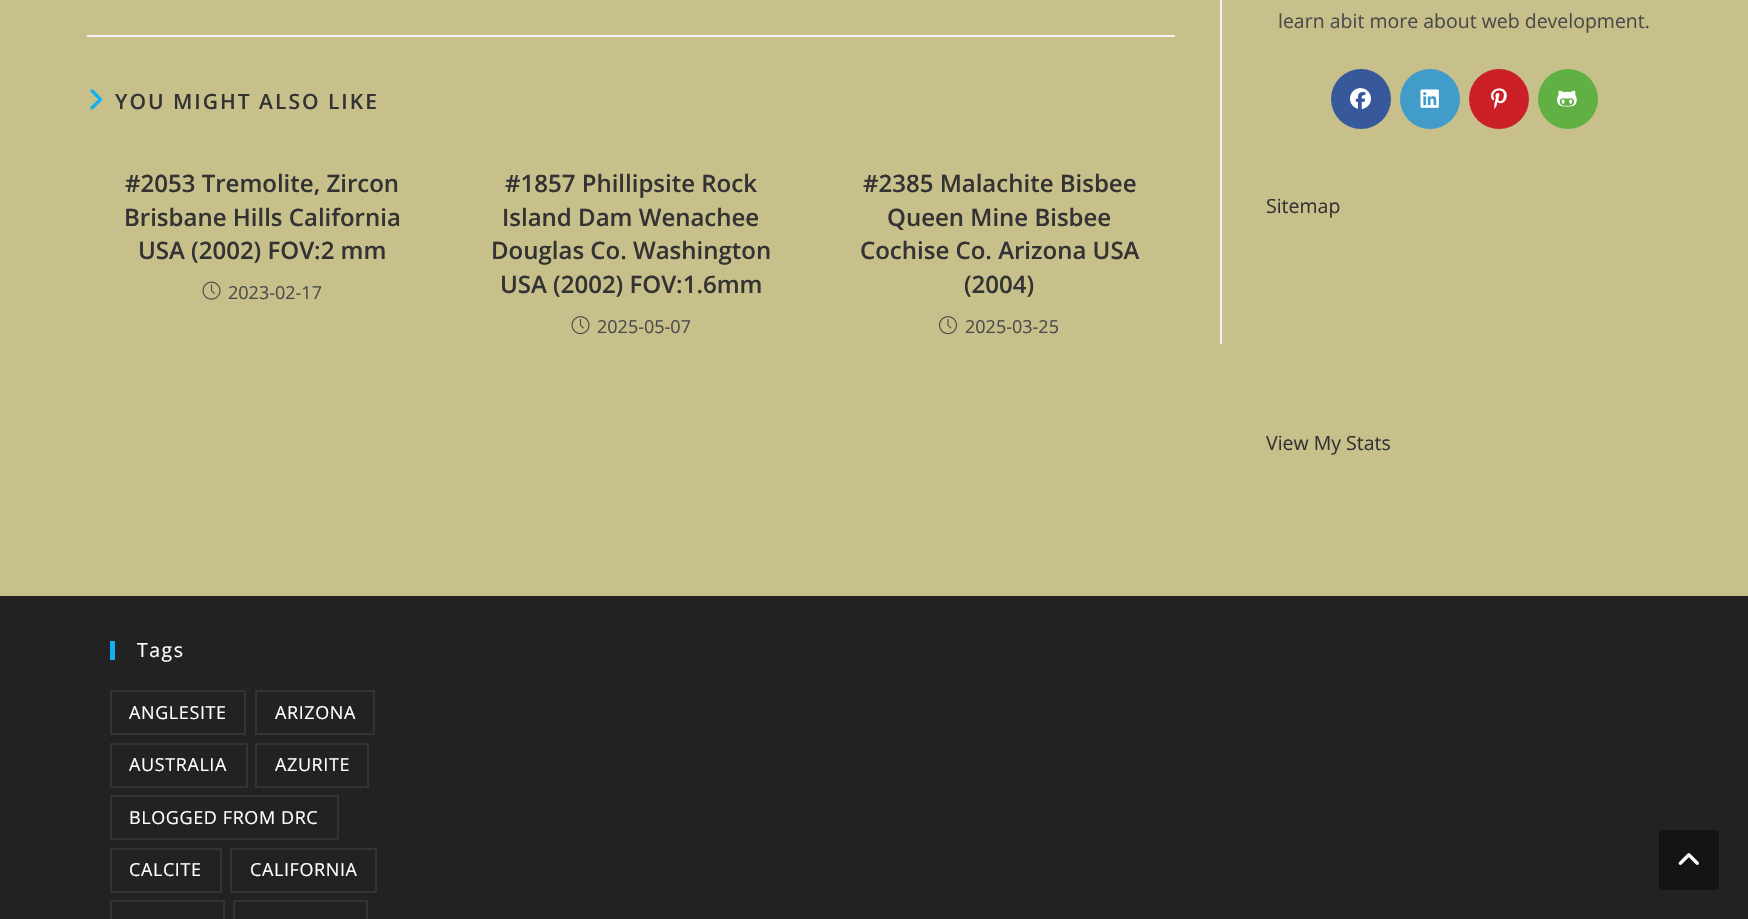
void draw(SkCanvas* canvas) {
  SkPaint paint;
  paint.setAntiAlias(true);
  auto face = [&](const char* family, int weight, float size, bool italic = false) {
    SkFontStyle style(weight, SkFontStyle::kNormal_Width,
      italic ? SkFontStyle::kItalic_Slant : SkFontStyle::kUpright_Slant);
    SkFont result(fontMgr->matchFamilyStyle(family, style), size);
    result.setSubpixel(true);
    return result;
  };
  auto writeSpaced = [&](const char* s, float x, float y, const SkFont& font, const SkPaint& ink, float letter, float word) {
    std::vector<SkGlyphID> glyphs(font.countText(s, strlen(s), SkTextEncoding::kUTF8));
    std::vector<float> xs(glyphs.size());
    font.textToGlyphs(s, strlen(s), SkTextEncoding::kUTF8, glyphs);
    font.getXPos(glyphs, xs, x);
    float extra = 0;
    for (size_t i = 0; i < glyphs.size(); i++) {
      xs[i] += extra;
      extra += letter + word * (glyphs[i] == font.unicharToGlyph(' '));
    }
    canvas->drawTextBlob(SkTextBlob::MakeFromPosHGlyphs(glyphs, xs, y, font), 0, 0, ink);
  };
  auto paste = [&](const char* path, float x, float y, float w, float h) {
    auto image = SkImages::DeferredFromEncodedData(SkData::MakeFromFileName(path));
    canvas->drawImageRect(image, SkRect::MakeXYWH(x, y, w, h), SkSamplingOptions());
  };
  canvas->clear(0xffc8c08b);
  paint.setColor(0xfff1f1f1);
  canvas->drawRect(SkRect::MakeXYWH(1220, 0, 2, 344), paint);
  canvas->drawRect(SkRect::MakeXYWH(87, 35, 1088, 2), paint);
  paste("img/1.png", 90, 89, 13, 21);
  paste("img/2.png", 202, 281, 19, 19);
  paste("img/3.png", 571, 316, 19, 19);
  paste("img/4.png", 939, 316, 18, 19);
  paint.setColor(0xff37589b);
  canvas->drawCircle(1361, 99, 30, paint);
  paste("img/5.png", 1350, 88, 21, 21);
  paint.setColor(0xff419cca);
  canvas->drawCircle(1430, 99, 30, paint);
  paste("img/6.png", 1420, 89, 19, 19);
  paint.setColor(0xffcb2027);
  canvas->drawCircle(1499, 99, 30, paint);
  paste("img/7.png", 1491, 88, 16, 21);
  paint.setColor(0xff60b044);
  canvas->drawCircle(1568, 99, 30, paint);
  paste("img/8.png", 1557, 90, 20, 17);
  paint.setColor(0xff222222);
  canvas->drawRect(SkRect::MakeXYWH(0, 596, 1748, 323), paint);
  paint.setColor(0xff13aff0);
  canvas->drawRect(SkRect::MakeXYWH(110, 641, 5, 19), paint);
  paint.setStroke(true);
  paint.setStrokeWidth(2);
  paint.setColor(0xff333333);
  canvas->drawRect(SkRect::MakeXYWH(111, 691, 134, 43), paint);
  canvas->drawRect(SkRect::MakeXYWH(256, 691, 118, 43), paint);
  canvas->drawRect(SkRect::MakeXYWH(111, 744, 136, 43), paint);
  canvas->drawRect(SkRect::MakeXYWH(256, 744, 112, 43), paint);
  canvas->drawRect(SkRect::MakeXYWH(111, 796, 227, 43), paint);
  canvas->drawRect(SkRect::MakeXYWH(111, 849, 110, 43), paint);
  canvas->drawRect(SkRect::MakeXYWH(231, 849, 145, 43), paint);
  canvas->drawRect(SkRect::MakeXYWH(111, 901, 113, 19), paint);
  canvas->drawRect(SkRect::MakeXYWH(234, 901, 133, 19), paint);
  paint.setStroke(false);
  paint.setColor(0xff141414);
  canvas->drawRoundRect(SkRect::MakeXYWH(1659, 830, 60, 60), 3, 3, paint);
  paste("img/9.png", 1678, 853, 21, 12);
  auto f0 = face("Open Sans", 600, 21);
  paint.setColor(0xff333333);
  writeSpaced("YOU MIGHT ALSO LIKE", 115, 109, f0, paint, 2, 0);
  auto f1 = face("Open Sans", 600, 24);
  {
    const struct { const char* s; float x, y; } items[] = {
      {"#2053 Tremolite, Zircon", 125, 192},
      {"Brisbane Hills California", 124, 226},
      {"USA (2002) FOV:2 mm", 138, 259},
    };
    for (auto [s, x, y] : items) {
      canvas->drawString(s, x, y, f1, paint);
    }
  }
  auto f2 = face("Open Sans", 400, 18);
  paint.setColor(0xff4a4a4a);
  canvas->drawString("2023-02-17", 228, 299, f2, paint);
  paint.setColor(0xff333333);
  {
    const struct { const char* s; float x, y; } items[] = {
      {"#1857 Phillipsite Rock", 505, 192},
      {"Island Dam Wenachee", 502, 226},
      {"Douglas Co. Washington", 491, 259},
      {"USA (2002) FOV:1.6mm", 500, 293},
    };
    for (auto [s, x, y] : items) {
      canvas->drawString(s, x, y, f1, paint);
    }
  }
  paint.setColor(0xff4a4a4a);
  canvas->drawString("2025-05-07", 597, 333, f2, paint);
  paint.setColor(0xff333333);
  {
    const struct { const char* s; float x, y; } items[] = {
      {"#2385 Malachite Bisbee", 863, 192},
      {"Queen Mine Bisbee", 887, 226},
      {"Cochise Co. Arizona USA", 860, 259},
      {"(2004)", 964, 293},
    };
    for (auto [s, x, y] : items) {
      canvas->drawString(s, x, y, f1, paint);
    }
  }
  paint.setColor(0xff4a4a4a);
  canvas->drawString("2025-03-25", 965, 333, f2, paint);
  auto f3 = face("Open Sans", 400, 19.5f);
  canvas->drawString("learn abit more about web development.", 1278, 28, f3, paint);
  paint.setColor(0xff333333);
  canvas->drawString("Sitemap", 1266, 213, f3, paint);
  canvas->drawString("View My Stats", 1266, 450, f3, paint);
  paint.setColor(0xffffffff);
  writeSpaced("Tags", 137, 657, f3, paint, 1.5f, 0);
  {
    const struct { const char* s; float x, y; } items[] = {
      {"ANGLESITE", 129, 719},
      {"ARIZONA", 275, 719},
      {"AUSTRALIA", 129, 771},
      {"AZURITE", 275, 771},
      {"BLOGGED FROM DRC", 129, 824},
      {"CALCITE", 129, 876},
      {"CALIFORNIA", 250, 876},
    };
    for (auto [s, x, y] : items) {
      writeSpaced(s, x, y, f2, paint, 0.6f, 0);
    }
  }
}
